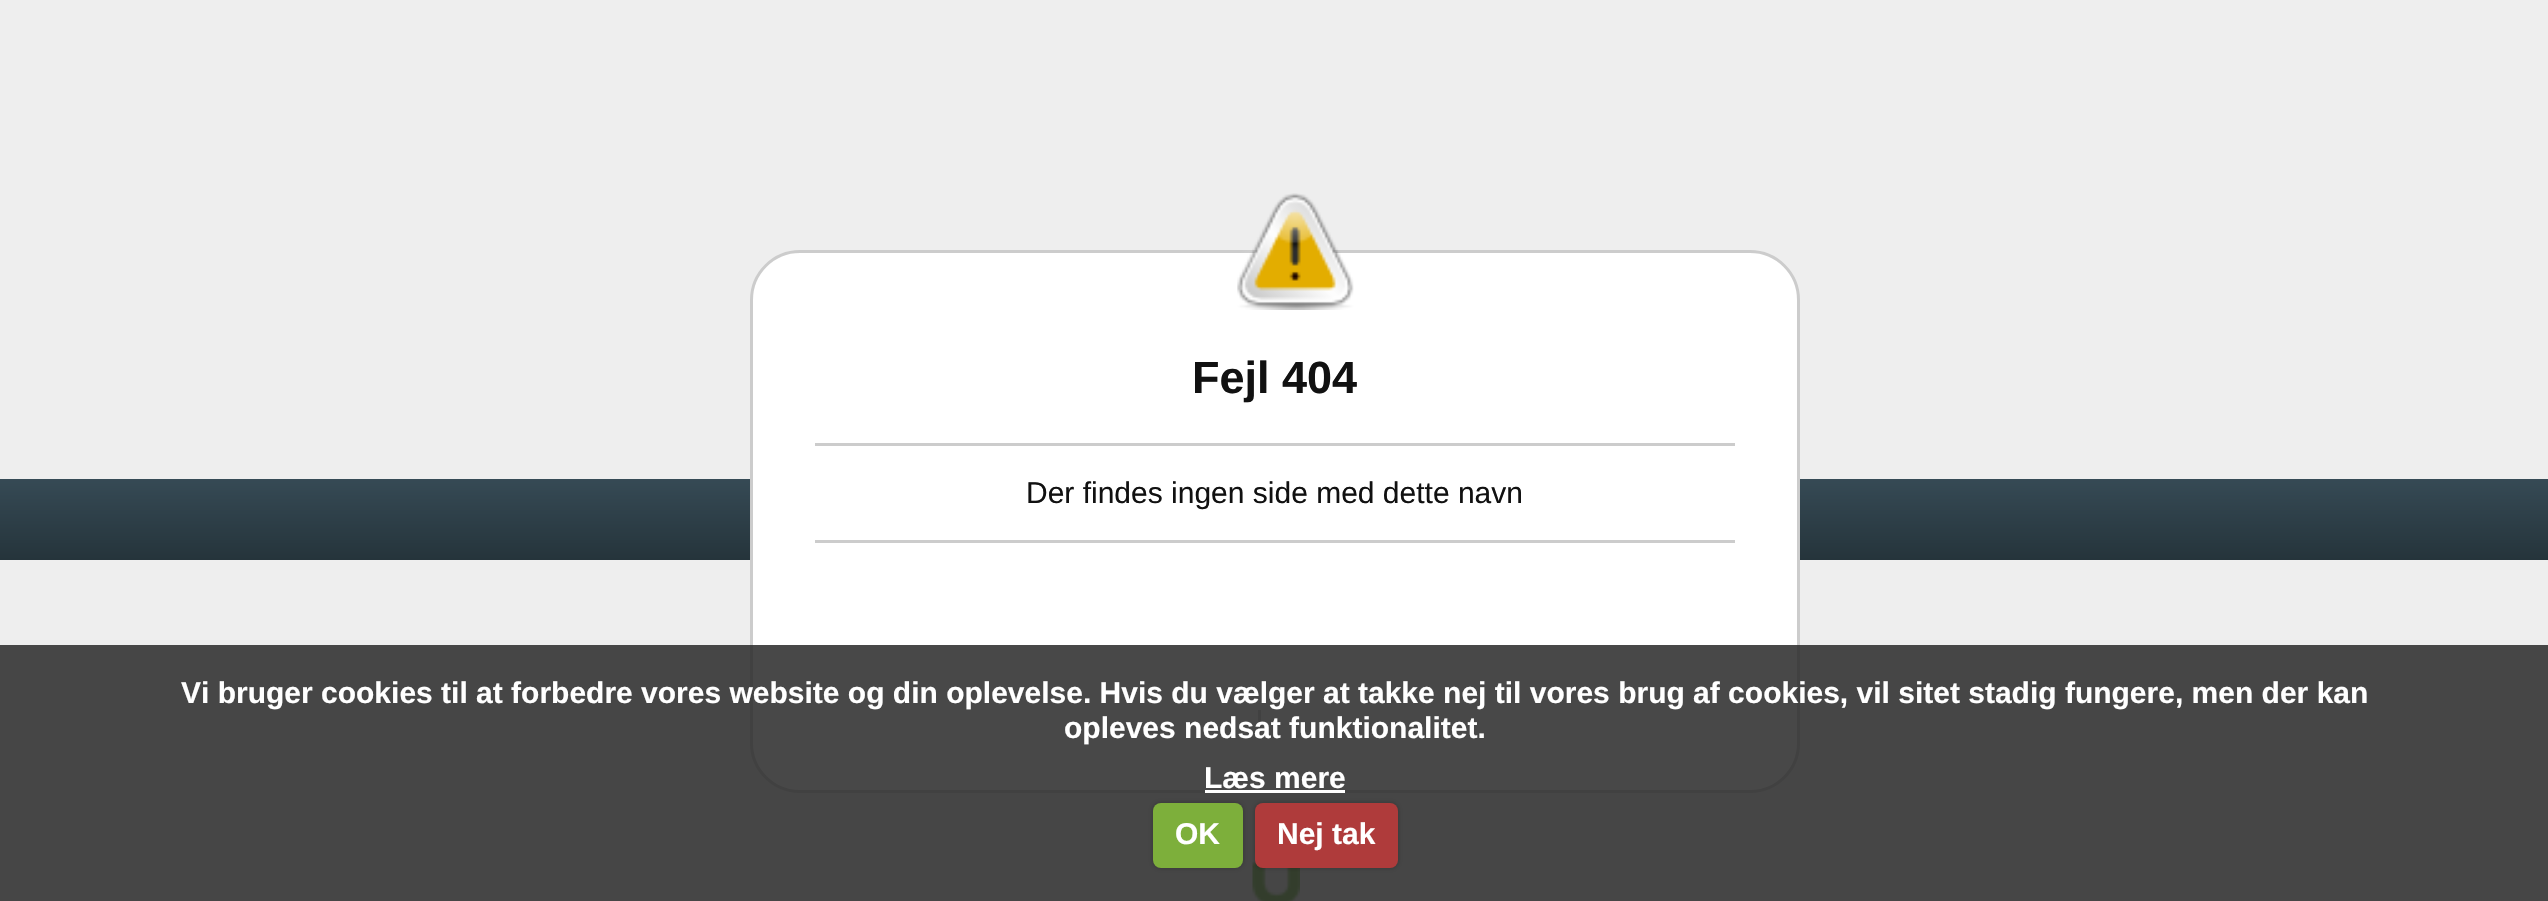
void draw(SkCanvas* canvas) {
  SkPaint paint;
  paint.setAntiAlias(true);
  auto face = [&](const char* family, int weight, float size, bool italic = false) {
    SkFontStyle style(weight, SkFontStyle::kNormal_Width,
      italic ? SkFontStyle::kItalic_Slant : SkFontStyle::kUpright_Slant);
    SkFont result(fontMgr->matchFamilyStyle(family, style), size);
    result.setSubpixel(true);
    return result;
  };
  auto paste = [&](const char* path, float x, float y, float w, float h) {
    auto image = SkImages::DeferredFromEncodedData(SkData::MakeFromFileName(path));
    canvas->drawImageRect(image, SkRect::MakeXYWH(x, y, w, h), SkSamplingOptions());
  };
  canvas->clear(0xffffffff);
  {
    const SkColor colors[] = {0xffeeeeee, 0xff364a55, 0xff25343b, 0xffeeeeee, 0xffeeeeee};
    const float stops[] = {0.53f, 0.53f, 0.62f, 0.62f, 1};
    const SkPoint ends[] = {{1275, 0}, {1275, 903}};
    paint.setShader(SkGradientShader::MakeLinear(ends, colors, stops, 5, SkTileMode::kClamp));
    paint.setAlpha(255);
  }
  canvas->drawRect(SkRect::MakeXYWH(0, 0, 2548, 901), paint);
  paint.setShader(nullptr);
  paint.setColor(0xffffffff);
  canvas->drawRoundRect(SkRect::MakeXYWH(751.5f, 251.5f, 1047, 540), 48.5f, 48.5f, paint);
  paint.setStroke(true);
  paint.setStrokeWidth(3);
  paint.setColor(0xffcccccc);
  canvas->drawRoundRect(SkRect::MakeXYWH(751.5f, 251.5f, 1047, 540), 48.5f, 48.5f, paint);
  paste("img/1.png", 1237, 193, 117, 117);
  paint.setStroke(false);
  {
    const struct { float x, y, w, h; SkColor color; } items[] = {
      {815, 443, 920, 3, 0xffcccccc},
      {815, 540, 920, 3, 0xffcccccc},
      {1258, 710, 3, 30, 0xffcccccc},
    };
    for (auto [x, y, w, h, color] : items) {
      paint.setColor(color);
      canvas->drawRect(SkRect::MakeXYWH(x, y, w, h), paint);
    }
  }
  paste("img/2.png", 1252, 845, 48, 56);
  paint.setColor(0xd9282828);
  canvas->drawRect(SkRect::MakeXYWH(0, 645, 2548, 256), paint);
  paint.setColor(0xffffffff);
  canvas->drawRect(SkRect::MakeXYWH(1205, 790, 140, 3), paint);
  paint.setColor(0x40000000);
  paint.setMaskFilter(SkMaskFilter::MakeBlur(kNormal_SkBlurStyle, 2.5f));
  canvas->drawRoundRect(SkRect::MakeXYWH(1153, 803, 90, 65), 8, 8, paint);
  paint.setMaskFilter(nullptr);
  paint.setColor(0xff7daf3b);
  canvas->drawRoundRect(SkRect::MakeXYWH(1153, 803, 90, 65), 8, 8, paint);
  paint.setColor(0x40000000);
  paint.setMaskFilter(SkMaskFilter::MakeBlur(kNormal_SkBlurStyle, 2.5f));
  canvas->drawRoundRect(SkRect::MakeXYWH(1255, 803, 143, 65), 8, 8, paint);
  paint.setMaskFilter(nullptr);
  paint.setColor(0xffaf3b3b);
  canvas->drawRoundRect(SkRect::MakeXYWH(1255, 803, 143, 65), 8, 8, paint);
  auto f0 = face("Liberation Sans", 700, 45);
  paint.setColor(0xff111111);
  canvas->drawString("Fejl 404", 1192, 393, f0, paint);
  auto f1 = face("Liberation Sans", 400, 30);
  canvas->drawString("Der findes ingen side med dette navn", 1026, 503, f1, paint);
  auto f2 = face("Liberation Sans", 700, 30);
  paint.setColor(0xffffffff);
  {
    const struct { const char* s; float x, y; } items[] = {
      {"Vi bruger cookies til at forbedre vores website og din oplevelse. Hvis du vælger at takke nej til vores brug af cookies, vil sitet stadig fungere, men der kan", 181, 703},
      {"opleves nedsat funktionalitet.", 1064, 738},
      {"Læs mere", 1204, 788},
      {"OK", 1175, 844},
      {"Nej tak", 1277, 844},
    };
    for (auto [s, x, y] : items) {
      canvas->drawString(s, x, y, f2, paint);
    }
  }
}
